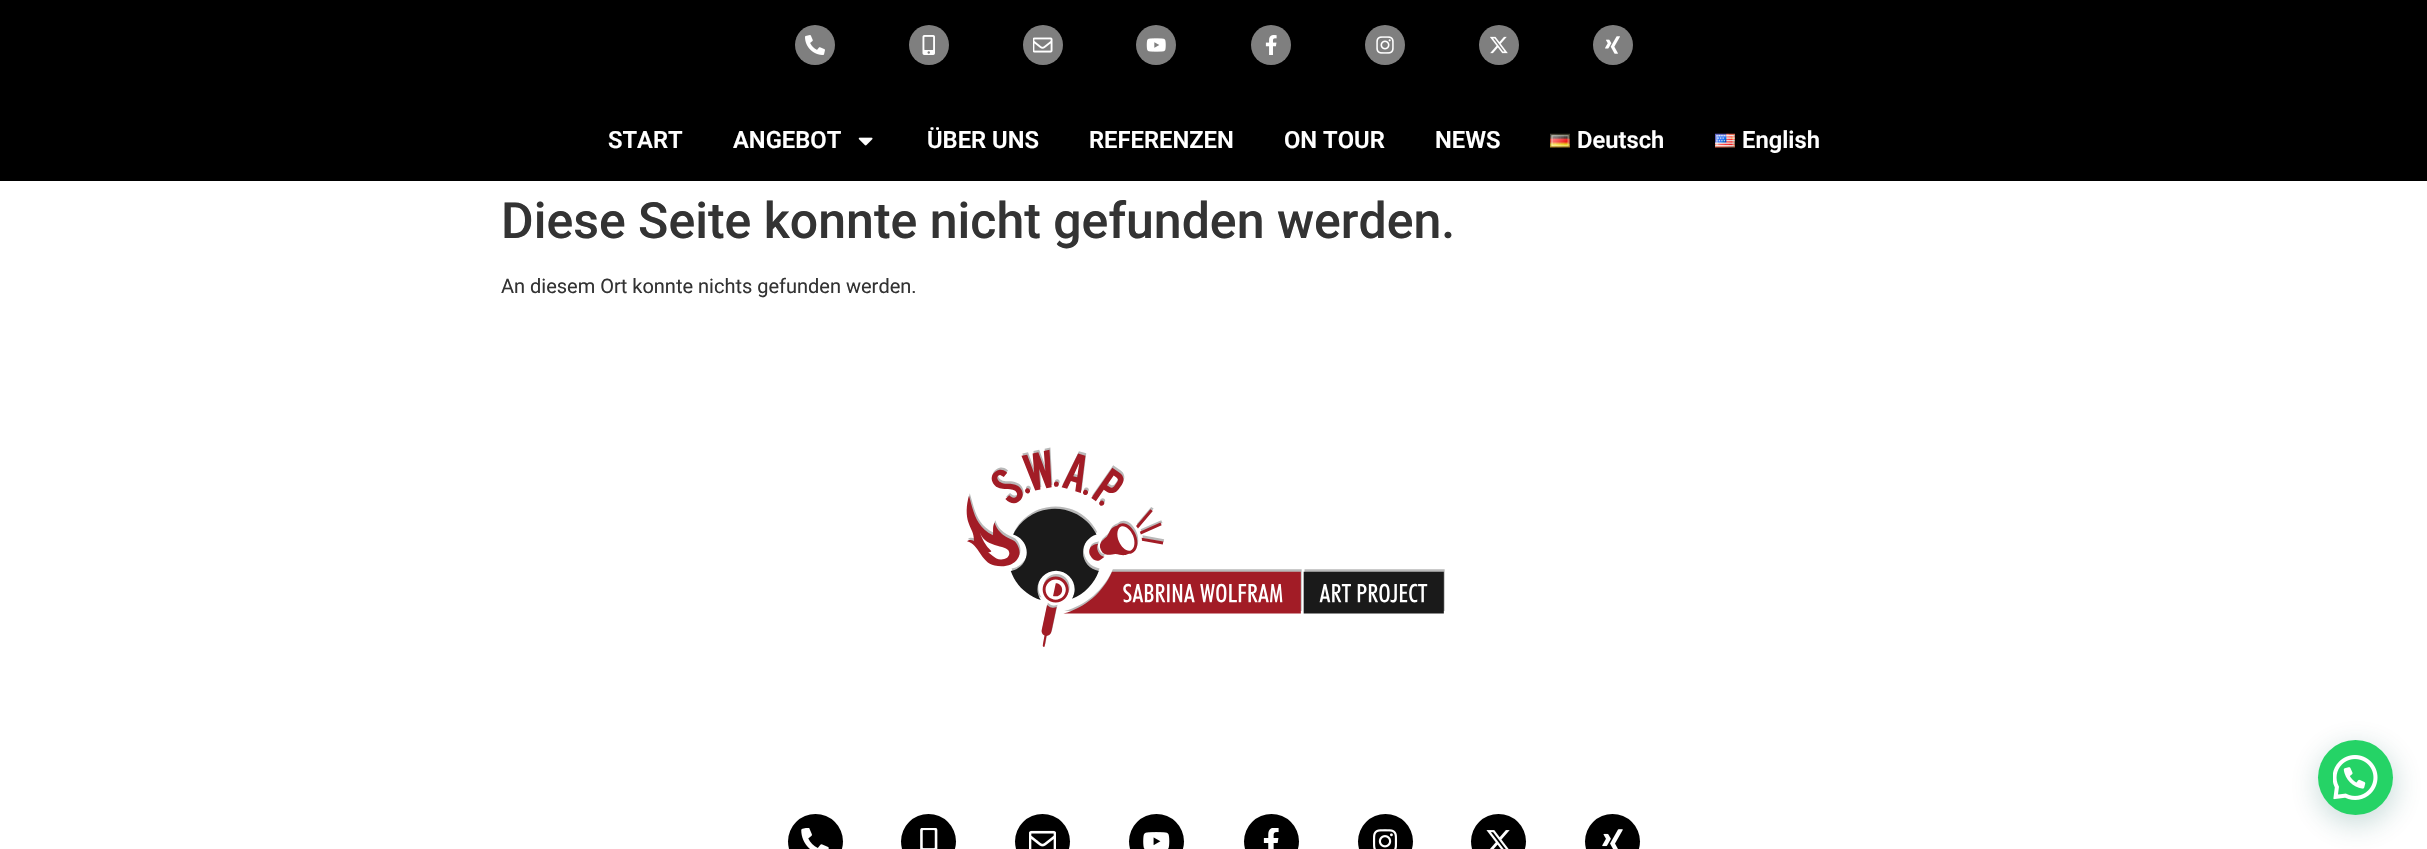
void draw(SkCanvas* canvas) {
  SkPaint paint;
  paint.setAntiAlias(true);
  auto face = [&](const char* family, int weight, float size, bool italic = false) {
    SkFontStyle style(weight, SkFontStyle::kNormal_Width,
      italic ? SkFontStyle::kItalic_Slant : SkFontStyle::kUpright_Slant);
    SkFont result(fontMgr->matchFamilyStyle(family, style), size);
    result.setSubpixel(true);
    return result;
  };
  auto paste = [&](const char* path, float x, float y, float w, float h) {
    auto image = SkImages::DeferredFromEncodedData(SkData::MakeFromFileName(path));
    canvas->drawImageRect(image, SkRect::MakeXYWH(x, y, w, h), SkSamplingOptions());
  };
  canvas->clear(0xffffffff);
  paint.setColor(0xff000000);
  canvas->drawRect(SkRect::MakeXYWH(0, 0, 2427, 181), paint);
  paint.setColor(0xff7f7f7f);
  canvas->drawCircle(815, 45, 20, paint);
  paste("img/1.png", 805, 35, 20, 20);
  canvas->drawCircle(929, 45, 20, paint);
  paste("img/2.png", 922, 35, 13, 20);
  canvas->drawCircle(1043, 45, 20, paint);
  paste("img/3.png", 1033, 37, 20, 16);
  canvas->drawCircle(1156, 45, 20, paint);
  paste("img/4.png", 1146, 38, 20, 14);
  canvas->drawCircle(1271, 45, 20, paint);
  paste("img/5.png", 1265, 35, 12, 20);
  canvas->drawCircle(1385, 45, 20, paint);
  paste("img/6.png", 1376, 36, 18, 18);
  canvas->drawCircle(1499, 45, 20, paint);
  paste("img/7.png", 1490, 36, 18, 18);
  canvas->drawCircle(1613, 45, 20, paint);
  paste("img/8.png", 1605, 36, 15, 18);
  paste("img/9.png", 858, 137, 15, 9);
  paste("img/10.png", 1550, 133, 20, 15);
  paste("img/11.png", 1715, 133, 20, 15);
  paste("img/12.png", 966, 447, 479, 200);
  paint.setColor(0xff000000);
  canvas->drawCircle(815.5f, 841.5f, 27.5f, paint);
  paste("img/13.png", 801, 828, 28, 21);
  canvas->drawCircle(928.5f, 841.5f, 27.5f, paint);
  paste("img/14.png", 920, 828, 18, 21);
  canvas->drawCircle(1042.5f, 841.5f, 27.5f, paint);
  paste("img/15.png", 1029, 830, 27, 19);
  canvas->drawCircle(1156.5f, 841.5f, 27.5f, paint);
  paste("img/16.png", 1143, 832, 27, 17);
  canvas->drawCircle(1271.5f, 841.5f, 27.5f, paint);
  paste("img/17.png", 1263, 828, 16, 21);
  canvas->drawCircle(1385.5f, 841.5f, 27.5f, paint);
  paste("img/18.png", 1372, 829, 26, 20);
  canvas->drawCircle(1498.5f, 841.5f, 27.5f, paint);
  paste("img/19.png", 1486, 830, 24, 19);
  canvas->drawCircle(1612.5f, 841.5f, 27.5f, paint);
  paste("img/20.png", 1602, 829, 21, 20);
  paint.setColor(0x3d075e54);
  paint.setMaskFilter(SkMaskFilter::MakeBlur(kNormal_SkBlurStyle, 15));
  canvas->drawRoundRect(SkRect::MakeXYWH(2319, 748, 75, 75), 37.5f, 37.5f, paint);
  paint.setMaskFilter(nullptr);
  paint.setColor(0xff25d366);
  canvas->drawCircle(2355.5f, 777.5f, 37.5f, paint);
  paste("img/21.png", 2333, 755, 45, 45);
  auto f0 = face("Roboto", 600, 23.75f);
  paint.setColor(0xffffffff);
  {
    const struct { const char* s; float x, y; } items[] = {
      {"START", 608, 148},
      {"ANGEBOT", 733, 148},
      {"ÜBER UNS", 927, 148},
      {"REFERENZEN", 1089, 148},
      {"ON TOUR", 1284, 148},
      {"NEWS", 1435, 148},
      {"Deutsch", 1577, 148},
      {"English", 1742, 148},
    };
    for (auto [s, x, y] : items) {
      canvas->drawString(s, x, y, f0, paint);
    }
  }
  auto f1 = face("Roboto", 500, 50);
  paint.setColor(0xff333333);
  canvas->drawString("Diese Seite konnte nicht gefunden werden.", 501, 238, f1, paint);
  auto f2 = face("Roboto", 400, 20);
  canvas->drawString("An diesem Ort konnte nichts gefunden werden.", 501, 293, f2, paint);
}
